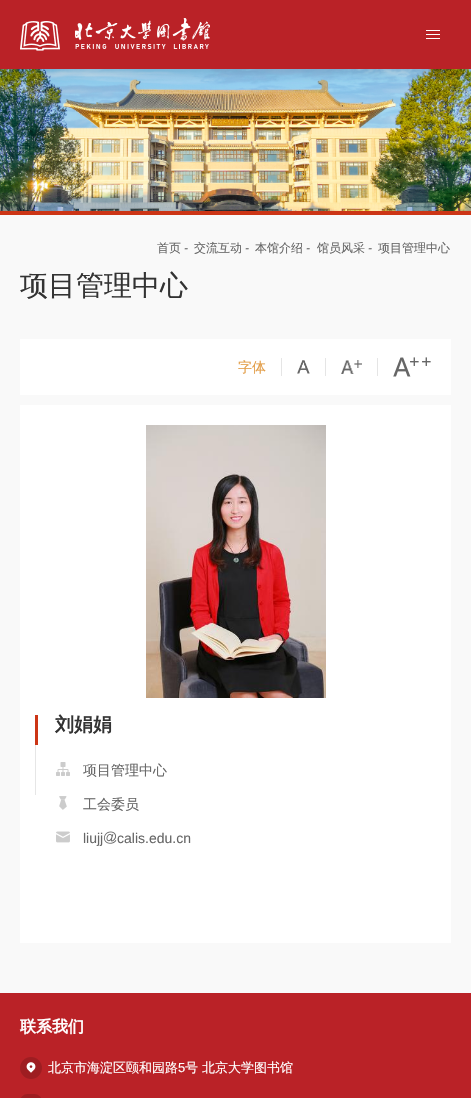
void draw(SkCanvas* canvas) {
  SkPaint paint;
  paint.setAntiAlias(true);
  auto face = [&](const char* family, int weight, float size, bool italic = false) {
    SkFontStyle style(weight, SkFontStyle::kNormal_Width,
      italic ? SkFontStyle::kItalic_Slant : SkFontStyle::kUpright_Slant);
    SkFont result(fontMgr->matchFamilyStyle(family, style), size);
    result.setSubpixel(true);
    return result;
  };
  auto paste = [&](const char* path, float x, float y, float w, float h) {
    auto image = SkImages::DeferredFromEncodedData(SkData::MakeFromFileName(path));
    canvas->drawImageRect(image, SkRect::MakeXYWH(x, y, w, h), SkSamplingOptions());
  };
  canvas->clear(0xfff9f9f9);
  paste("img/2.png", 0, 69, 471, 142);
  paint.setColor(0x1a000000);
  paint.setMaskFilter(SkMaskFilter::MakeBlur(kNormal_SkBlurStyle, 5));
  canvas->drawRect(SkRect::MakeXYWH(0, 5, 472, 70), paint);
  paint.setMaskFilter(nullptr);
  paint.setColor(0xffba2227);
  canvas->drawRect(SkRect::MakeXYWH(0, 0, 471, 69), paint);
  paste("img/1.png", 20, 18, 190, 33);
  {
    const struct { float x, y, w, h; SkColor color; } items[] = {
      {426, 30, 14, 1, 0xffffffff},
      {426, 34, 14, 1, 0xffffffff},
      {426, 38, 14, 1, 0xffffffff},
      {0, 211, 471, 4, 0xffcc3516},
      {20, 339, 431, 56, 0xffffffff},
      {281, 358, 1, 18, 0xffe5e5e5},
    };
    for (auto [x, y, w, h, color] : items) {
      paint.setColor(color);
      canvas->drawRect(SkRect::MakeXYWH(x, y, w, h), paint);
    }
  }
  paste("img/3.png", 297, 360, 13, 14);
  canvas->drawRect(SkRect::MakeXYWH(325, 358, 1, 18), paint);
  paste("img/4.png", 341, 360, 21, 14);
  canvas->drawRect(SkRect::MakeXYWH(377, 358, 1, 18), paint);
  paste("img/5.png", 393, 357, 38, 20);
  paint.setColor(0xffffffff);
  canvas->drawRect(SkRect::MakeXYWH(20, 405, 431, 538), paint);
  paste("img/6.png", 146, 425, 180, 273);
  paint.setColor(0xffcc3516);
  canvas->drawRect(SkRect::MakeXYWH(35, 715, 3, 30), paint);
  paint.setColor(0xffe6e6e6);
  canvas->drawRect(SkRect::MakeXYWH(35, 745, 1, 50), paint);
  paste("img/7.png", 56, 762, 14, 14);
  paste("img/8.png", 59, 796, 8, 14);
  paste("img/9.png", 56, 831, 14, 12);
  paste("img/10.png", 103, 831, 14, 13);
  paint.setColor(0xffba2227);
  canvas->drawRect(SkRect::MakeXYWH(0, 993, 471, 105), paint);
  paint.setColor(0xff9e1d21);
  canvas->drawCircle(31, 1068, 11, paint);
  paste("img/11.png", 26, 1062, 10, 11);
  canvas->drawRoundRect(SkRect::MakeXYWH(20, 1094, 22, 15), 11, 11, paint);
  auto f0 = face("WenQuanYi Zen Hei", 500, 12);
  paint.setColor(0xff666666);
  canvas->drawString("首页", 157, 252, f0, paint);
  auto f1 = face("Liberation Sans", 400, 12, true);
  canvas->drawString("-", 184, 252, f1, paint);
  canvas->drawString("交流互动", 194, 252, f0, paint);
  canvas->drawString("-", 245, 252, f1, paint);
  canvas->drawString("本馆介绍", 255, 252, f0, paint);
  canvas->drawString("-", 306, 252, f1, paint);
  canvas->drawString("馆员风采", 317, 252, f0, paint);
  canvas->drawString("-", 368, 252, f1, paint);
  canvas->drawString("项目管理中心", 378, 252, f0, paint);
  auto f2 = face("WenQuanYi Zen Hei", 500, 28);
  paint.setColor(0xff333333);
  canvas->drawString("项目管理中心", 20, 295, f2, paint);
  auto f3 = face("WenQuanYi Zen Hei", 500, 14);
  paint.setColor(0xffe29c45);
  canvas->drawString("字体", 238, 372, f3, paint);
  auto f4 = face("WenQuanYi Zen Hei", 700, 19);
  paint.setColor(0xff333333);
  canvas->drawString("刘娟娟", 55, 731, f4, paint);
  paint.setColor(0xff666666);
  canvas->drawString("项目管理中心", 83, 775, f3, paint);
  canvas->drawString("工会委员", 83, 809, f3, paint);
  auto f5 = face("Liberation Sans", 400, 14);
  canvas->drawString("liujj", 83, 843, f5, paint);
  canvas->drawString("calis.edu.cn", 117, 843, f5, paint);
  auto f6 = face("WenQuanYi Zen Hei", 700, 16);
  paint.setColor(0xffffffff);
  canvas->drawString("联系我们", 20, 1032, f6, paint);
  auto f7 = face("WenQuanYi Zen Hei", 500, 13);
  canvas->drawString("北京市海淀区颐和园路", 48, 1072, f7, paint);
  auto f8 = face("Liberation Sans", 400, 13);
  canvas->drawString("5", 178, 1072, f8, paint);
  canvas->drawString("号 北京大学图书馆", 185, 1072, f7, paint);
}
